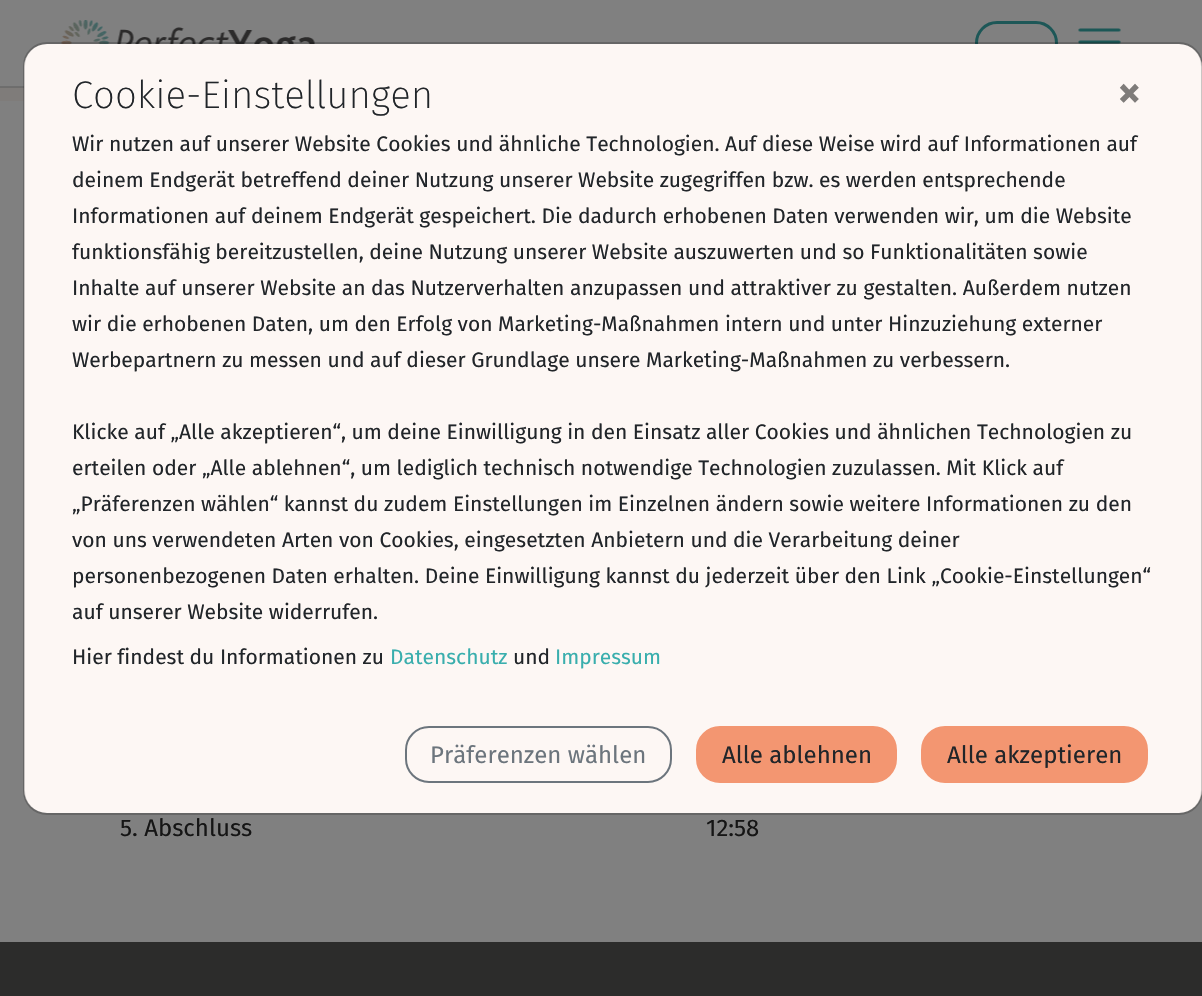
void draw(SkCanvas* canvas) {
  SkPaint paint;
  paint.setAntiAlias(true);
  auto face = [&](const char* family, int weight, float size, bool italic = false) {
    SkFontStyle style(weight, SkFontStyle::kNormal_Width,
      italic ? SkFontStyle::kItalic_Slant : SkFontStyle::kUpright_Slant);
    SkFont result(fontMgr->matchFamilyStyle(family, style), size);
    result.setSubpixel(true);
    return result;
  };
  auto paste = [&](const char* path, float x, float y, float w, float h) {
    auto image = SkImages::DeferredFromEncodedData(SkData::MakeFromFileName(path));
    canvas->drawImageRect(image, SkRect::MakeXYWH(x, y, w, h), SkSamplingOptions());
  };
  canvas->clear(0xff808080);
  paint.setColor(0xff6e6e6e);
  canvas->drawRect(SkRect::MakeXYWH(0, 86, 24, 1), paint);
  paste("img/1.png", 61, 20, 254, 24);
  paint.setStroke(true);
  paint.setStrokeWidth(3);
  paint.setColor(0xff1d5757);
  canvas->drawRoundRect(SkRect::MakeXYWH(976.5f, 22.5f, 80, 41), 20.5f, 20.5f, paint);
  paste("img/2.png", 1078, 28, 43, 16);
  paint.setStroke(false);
  paint.setColor(0xfffdf7f4);
  canvas->drawRoundRect(SkRect::MakeXYWH(24, 44, 1178, 769), 23, 23, paint);
  paint.setColor(0xff7f7c7a);
  canvas->drawRect(SkRect::MakeXYWH(0, 88, 24, 13), paint);
  paint.setColor(0xff6e6d6c);
  canvas->drawRect(SkRect::MakeXYWH(0, 87, 24, 1), paint);
  paint.setStroke(true);
  paint.setStrokeWidth(2);
  paint.setColor(0x33000000);
  canvas->drawRoundRect(SkRect::MakeXYWH(24, 43, 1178, 771), 23, 23, paint);
  paint.setColor(0xff6c757d);
  canvas->drawRoundRect(SkRect::MakeXYWH(406, 727, 265, 55), 23, 23, paint);
  paint.setStroke(false);
  paint.setColor(0xfff39671);
  canvas->drawRoundRect(SkRect::MakeXYWH(697, 727, 199, 55), 23, 23, paint);
  paint.setStroke(true);
  canvas->drawRoundRect(SkRect::MakeXYWH(697, 727, 199, 55), 23, 23, paint);
  paint.setStroke(false);
  canvas->drawRoundRect(SkRect::MakeXYWH(922, 727, 225, 55), 23, 23, paint);
  paint.setStroke(true);
  canvas->drawRoundRect(SkRect::MakeXYWH(922, 727, 225, 55), 23, 23, paint);
  paint.setStroke(false);
  paint.setColor(0xff2c2c2b);
  canvas->drawRect(SkRect::MakeXYWH(0, 942, 1202, 54), paint);
  auto f0 = face("Fira Sans", 200, 38.5f);
  paint.setColor(0xff212529);
  canvas->drawString("Cookie-Einstellungen", 72, 108, f0, paint);
  auto f1 = face("Fira Sans", 600, 48);
  paint.setColor(0xff7f7c7a);
  canvas->drawString("×", 1117, 108, f1, paint);
  auto f2 = face("Fira Sans", 400, 21);
  paint.setColor(0xff212529);
  {
    const struct { const char* s; float x, y; } items[] = {
      {"Wir nutzen auf unserer Website Cookies und ähnliche Technologien. Auf diese Weise wird auf Informationen auf", 72, 151},
      {"deinem Endgerät betreffend deiner Nutzung unserer Website zugegriffen bzw. es werden entsprechende", 72, 187},
      {"Informationen auf deinem Endgerät gespeichert. Die dadurch erhobenen Daten verwenden wir, um die Website", 72, 223},
      {"funktionsfähig bereitzustellen, deine Nutzung unserer Website auszuwerten und so Funktionalitäten sowie", 72, 259},
      {"Inhalte auf unserer Website an das Nutzerverhalten anzupassen und attraktiver zu gestalten. Außerdem nutzen", 72, 295},
      {"wir die erhobenen Daten, um den Erfolg von Marketing-Maßnahmen intern und unter Hinzuziehung externer", 72, 331},
      {"Werbepartnern zu messen und auf dieser Grundlage unsere Marketing-Maßnahmen zu verbessern.", 72, 367},
      {"Klicke auf „Alle akzeptieren“, um deine Einwilligung in den Einsatz aller Cookies und ähnlichen Technologien zu", 72, 439},
      {"erteilen oder „Alle ablehnen“, um lediglich technisch notwendige Technologien zuzulassen. Mit Klick auf", 72, 475},
      {"„Präferenzen wählen“ kannst du zudem Einstellungen im Einzelnen ändern sowie weitere Informationen zu den", 72, 511},
      {"von uns verwendeten Arten von Cookies, eingesetzten Anbietern und die Verarbeitung deiner", 72, 547},
      {"personenbezogenen Daten erhalten. Deine Einwilligung kannst du jederzeit über den Link „Cookie-Einstellungen“", 72, 583},
      {"auf unserer Website widerrufen.", 72, 619},
      {"Hier findest du Informationen zu", 72, 664},
    };
    for (auto [s, x, y] : items) {
      canvas->drawString(s, x, y, f2, paint);
    }
  }
  paint.setColor(0xff39aead);
  canvas->drawString("Datenschutz", 390, 664, f2, paint);
  paint.setColor(0xff212529);
  canvas->drawString("und", 513, 664, f2, paint);
  paint.setColor(0xff39aead);
  canvas->drawString("Impressum", 555, 664, f2, paint);
  auto f3 = face("Fira Sans", 400, 24);
  paint.setColor(0xff6c757d);
  canvas->drawString("Präferenzen wählen", 430, 763, f3, paint);
  paint.setColor(0xff212529);
  canvas->drawString("Alle ablehnen", 722, 763, f3, paint);
  canvas->drawString("Alle akzeptieren", 947, 763, f3, paint);
  paint.setColor(0xff151515);
  canvas->drawString("5. Abschluss", 120, 836, f3, paint);
  canvas->drawString("12:58", 706, 836, f3, paint);
}
